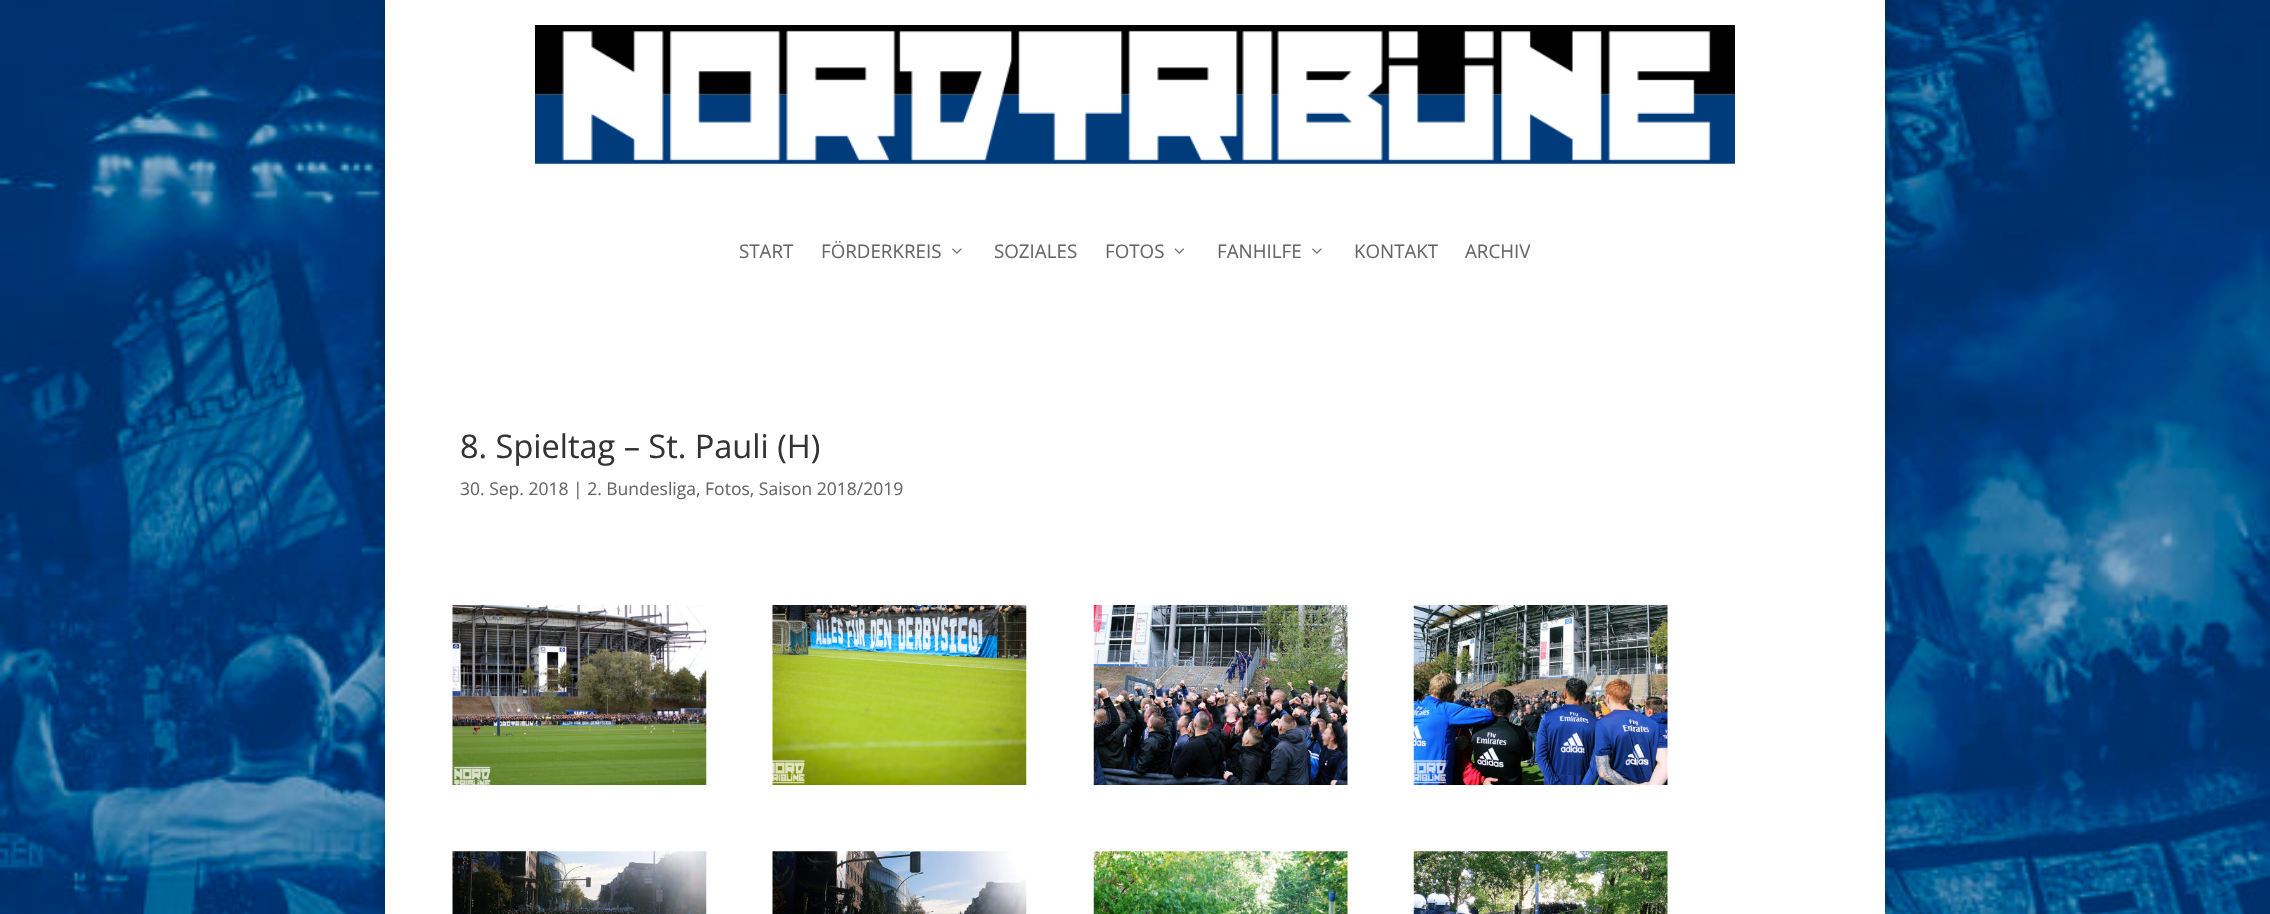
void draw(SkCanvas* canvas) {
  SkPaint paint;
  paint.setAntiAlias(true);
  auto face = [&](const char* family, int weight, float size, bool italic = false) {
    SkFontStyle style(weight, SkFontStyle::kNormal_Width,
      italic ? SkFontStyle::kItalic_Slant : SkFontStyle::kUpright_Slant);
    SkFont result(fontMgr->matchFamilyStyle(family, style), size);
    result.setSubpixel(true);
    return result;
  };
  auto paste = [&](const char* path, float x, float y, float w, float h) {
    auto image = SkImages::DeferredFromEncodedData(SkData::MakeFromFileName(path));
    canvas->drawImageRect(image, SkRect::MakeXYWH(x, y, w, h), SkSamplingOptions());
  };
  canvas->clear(0xffffffff);
  paste("img/1.png", 0, 0, 2270, 914);
  paint.setColor(0x33000000);
  paint.setMaskFilter(SkMaskFilter::MakeBlur(kNormal_SkBlurStyle, 6));
  canvas->drawRect(SkRect::MakeXYWH(385, 0, 1500, 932), paint);
  paint.setMaskFilter(nullptr);
  paint.setColor(0xffffffff);
  canvas->drawRect(SkRect::MakeXYWH(385, 0, 1500, 914), paint);
  paste("img/2.png", 535, 25, 1200, 139);
  paste("img/3.png", 952, 248, 10, 6);
  paste("img/4.png", 1174, 248, 10, 6);
  paste("img/3.png", 1312, 248, 10, 6);
  paste("img/5.png", 452, 605, 255, 180);
  paste("img/6.png", 772, 605, 255, 180);
  paste("img/7.png", 1093, 605, 255, 180);
  paste("img/8.png", 1413, 605, 255, 180);
  paste("img/9.png", 452, 851, 255, 63);
  paste("img/10.png", 772, 851, 255, 63);
  paste("img/11.png", 1093, 851, 255, 63);
  paste("img/12.png", 1413, 851, 255, 63);
  auto f0 = face("Open Sans", 400, 18.75f);
  paint.setColor(0xff666666);
  {
    const struct { const char* s; float x, y; } items[] = {
      {"START", 739, 258},
      {"FÖRDERKREIS", 821, 258},
      {"SOZIALES", 994, 258},
      {"FOTOS", 1105, 258},
      {"FANHILFE", 1217, 258},
      {"KONTAKT", 1354, 258},
      {"ARCHIV", 1465, 258},
    };
    for (auto [s, x, y] : items) {
      canvas->drawString(s, x, y, f0, paint);
    }
  }
  auto f1 = face("Open Sans", 400, 32.5f);
  paint.setColor(0xff333333);
  canvas->drawString("8. Spieltag – St. Pauli (H)", 460, 458, f1, paint);
  auto f2 = face("Open Sans", 400, 17.5f);
  paint.setColor(0xff666666);
  canvas->drawString("30. Sep. 2018 | 2. Bundesliga, Fotos, Saison 2018/2019", 460, 495, f2, paint);
}
